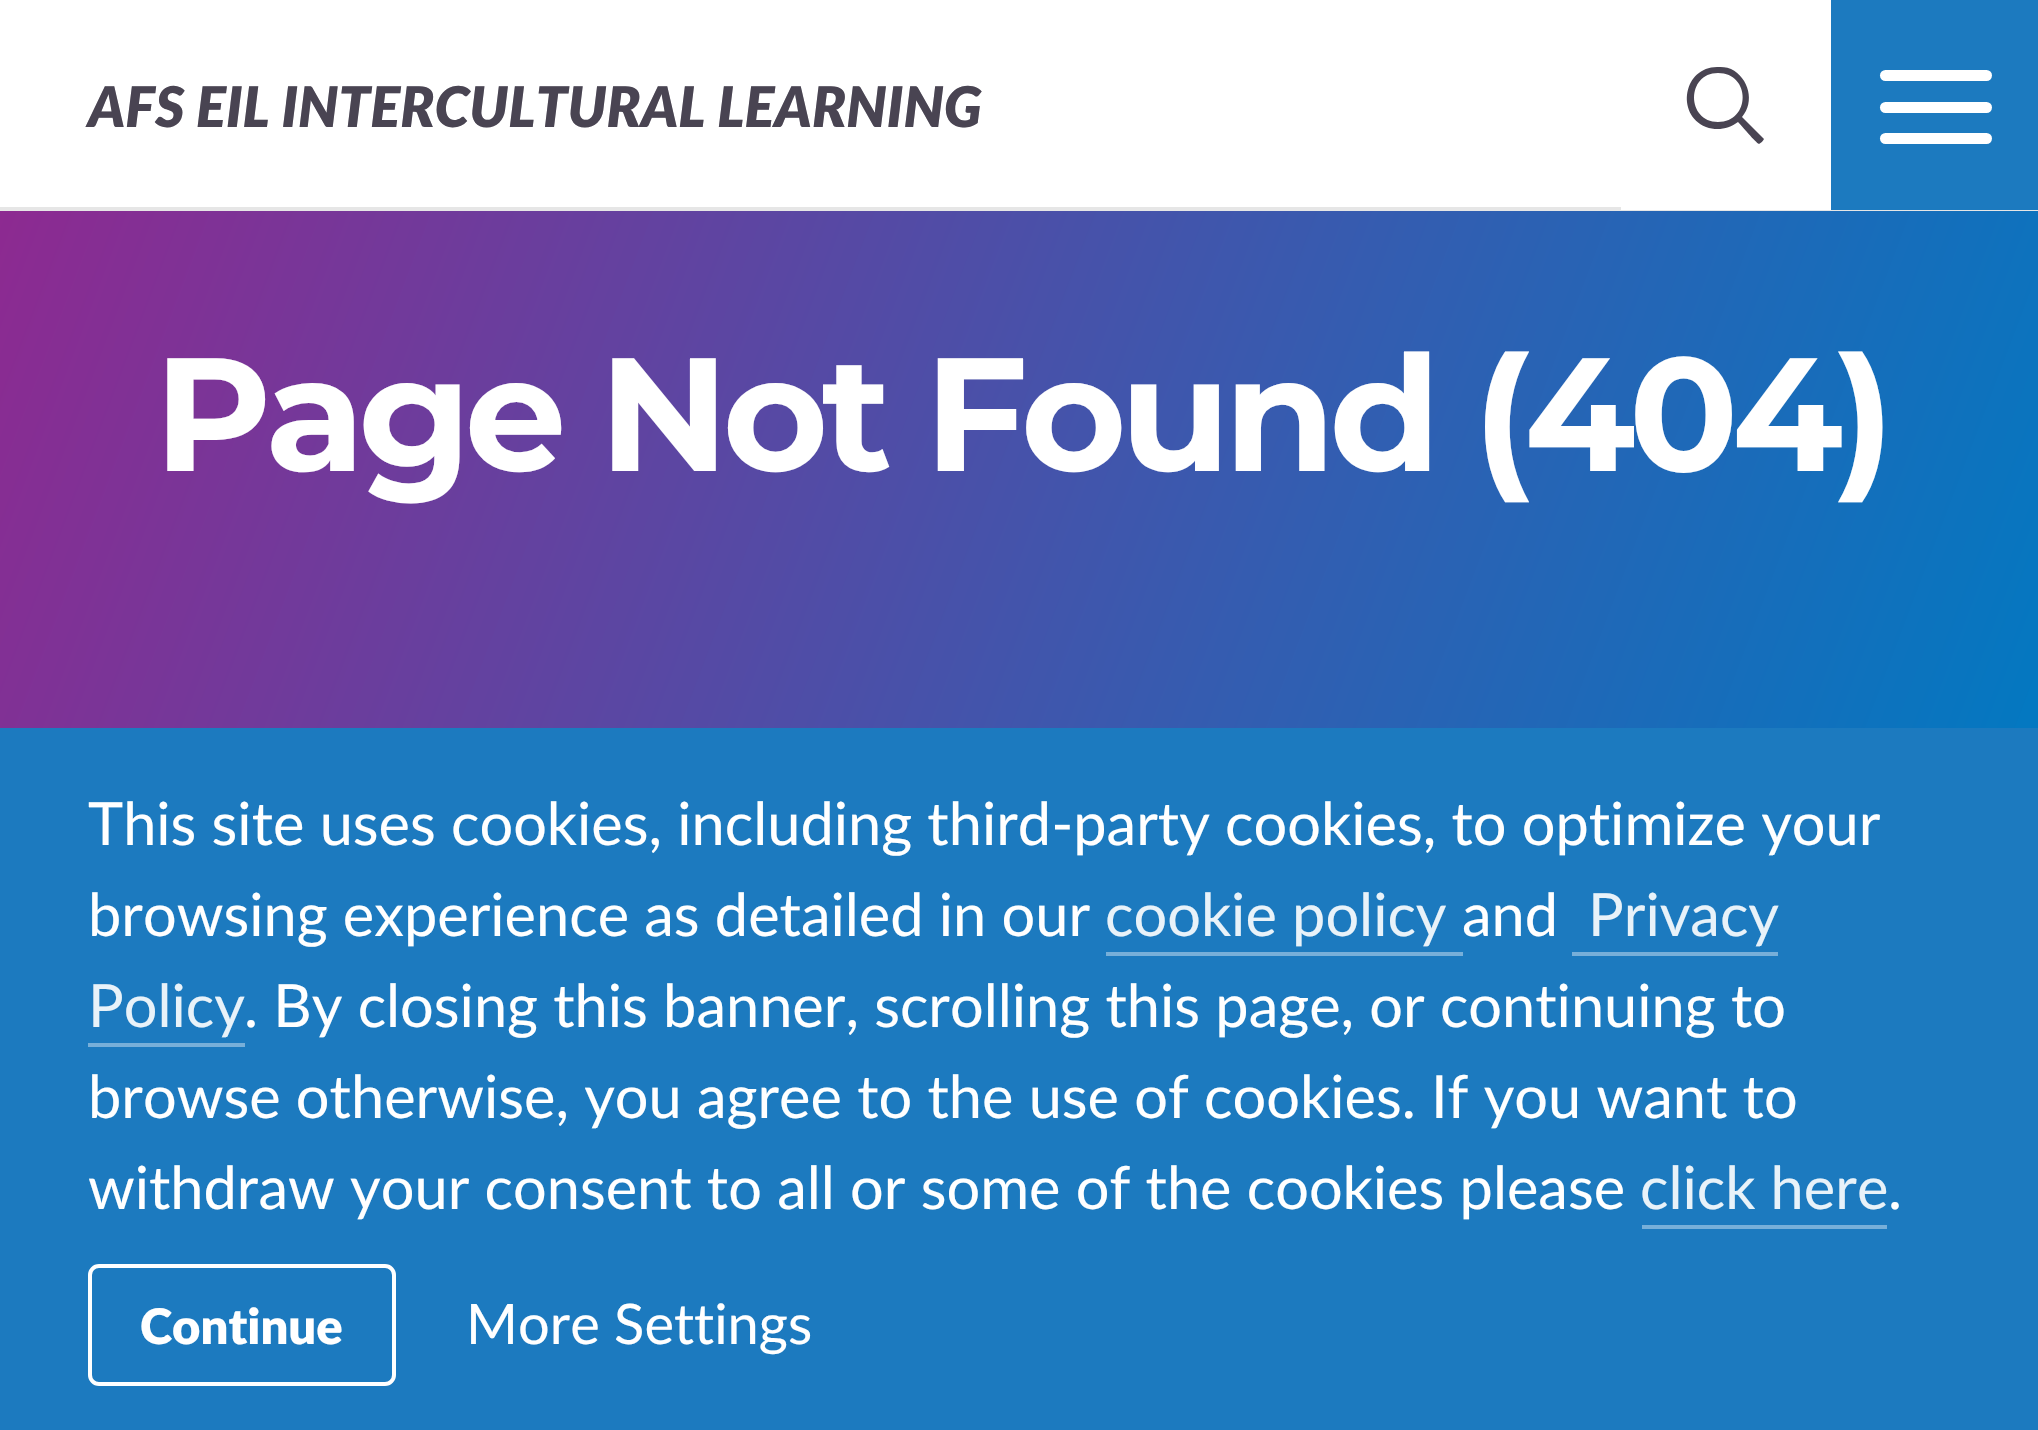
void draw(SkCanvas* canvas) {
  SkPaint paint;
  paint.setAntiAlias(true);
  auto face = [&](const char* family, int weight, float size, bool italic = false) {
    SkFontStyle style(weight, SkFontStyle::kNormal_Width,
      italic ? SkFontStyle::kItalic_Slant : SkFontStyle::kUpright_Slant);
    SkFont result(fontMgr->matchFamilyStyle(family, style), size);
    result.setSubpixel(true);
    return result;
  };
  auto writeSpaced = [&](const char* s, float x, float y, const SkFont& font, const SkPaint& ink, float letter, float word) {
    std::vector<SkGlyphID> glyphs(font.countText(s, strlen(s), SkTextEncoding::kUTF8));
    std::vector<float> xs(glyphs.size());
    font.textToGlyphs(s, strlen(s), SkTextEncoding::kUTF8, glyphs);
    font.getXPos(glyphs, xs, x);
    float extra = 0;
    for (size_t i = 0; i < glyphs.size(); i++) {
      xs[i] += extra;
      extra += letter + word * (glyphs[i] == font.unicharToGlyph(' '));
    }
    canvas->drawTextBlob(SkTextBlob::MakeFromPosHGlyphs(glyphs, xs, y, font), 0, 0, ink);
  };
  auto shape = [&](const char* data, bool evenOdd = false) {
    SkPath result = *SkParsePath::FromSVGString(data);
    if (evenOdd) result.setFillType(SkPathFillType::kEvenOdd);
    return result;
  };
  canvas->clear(0xffffffff);
  paint.setColor(0xffe6e6e6);
  canvas->drawRect(SkRect::MakeXYWH(0, 207, 2038, 4), paint);
  paint.setColor(0xffffffff);
  canvas->drawRect(SkRect::MakeXYWH(1621, 207, 210, 3), paint);
  paint.setColor(0xff494452);
  canvas->drawPath(shape("M1742 117C1755 102 1749 78 1731 69C1726 67 1722 67 1717 67C1684 67 1675 114 1706 127C1717 131 1729 129 1738 122C1741 125 1756 143 1759 144C1761 143 1763 141 1764 139L1763 138ZM1718 122C1686 122 1686 73 1718 73C1751 73 1751 122 1718 122Z", true), paint);
  paint.setColor(0xff1c7abf);
  canvas->drawRect(SkRect::MakeXYWH(1831, 0, 207, 210), paint);
  paint.setColor(0xffffffff);
  canvas->drawRoundRect(SkRect::MakeXYWH(1880, 102, 112, 11), 5.5f, 5.5f, paint);
  canvas->drawRoundRect(SkRect::MakeXYWH(1880, 70, 112, 11), 5.5f, 5.5f, paint);
  canvas->drawRoundRect(SkRect::MakeXYWH(1880, 133, 112, 11), 5.5f, 5.5f, paint);
  {
    const SkColor colors[] = {0xff92278f, 0xff355cb0, 0xff007ac2};
    const float stops[] = {0, 0.62f, 1};
    const SkPoint ends[] = {{-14, 37}, {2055, 820}};
    paint.setShader(SkGradientShader::MakeLinear(ends, colors, stops, 3, SkTileMode::kClamp));
    paint.setAlpha(255);
  }
  canvas->drawRect(SkRect::MakeXYWH(0, 211, 2038, 517), paint);
  paint.setShader(nullptr);
  {
    const struct { float x, y, w, h; SkColor color; } items[] = {
      {0, 728, 2038, 702, 0xff1c7abf},
      {1106, 952, 357, 4, 0xff77afd9},
      {1572, 952, 206, 4, 0xff77afd9},
      {88, 1043, 157, 4, 0xff77afd9},
      {1642, 1225, 245, 4, 0xff77afd9},
    };
    for (auto [x, y, w, h, color] : items) {
      paint.setColor(color);
      canvas->drawRect(SkRect::MakeXYWH(x, y, w, h), paint);
    }
  }
  paint.setStroke(true);
  paint.setStrokeWidth(4);
  paint.setColor(0xffffffff);
  canvas->drawRoundRect(SkRect::MakeXYWH(90, 1266, 304, 118), 9, 9, paint);
  auto f0 = face("Lato", 900, 56, true);
  paint.setStroke(false);
  paint.setColor(0xff494452);
  canvas->drawString("AFS EIL INTERCULTURAL LEARNING", 88, 127, f0, paint);
  auto f1 = face("Montserrat", 100, 161);
  paint.setColor(0xffffffff);
  writeSpaced("Page Not Found (404)", 154, 471, f1, paint, -6.4f, 0);
  auto f2 = face("Lato", 400, 59.5f);
  canvas->drawString("This site uses cookies, including third-party cookies, to optimize your", 88, 845, f2, paint);
  canvas->drawString("browsing experience as detailed in our", 88, 936, f2, paint);
  paint.setColor(0xffe8f2f9);
  canvas->drawString("cookie policy", 1105, 936, f2, paint);
  paint.setColor(0xffffffff);
  canvas->drawString("and", 1462, 936, f2, paint);
  paint.setColor(0xffe8f2f9);
  canvas->drawString("Privacy", 1588, 936, f2, paint);
  canvas->drawString("Policy", 88, 1027, f2, paint);
  paint.setColor(0xffffffff);
  {
    const struct { const char* s; float x, y; } items[] = {
      {". By closing this banner, scrolling this page, or continuing to", 244, 1027},
      {"browse otherwise, you agree to the use of cookies. If you want to", 88, 1118},
      {"withdraw your consent to all or some of the cookies please", 88, 1209},
    };
    for (auto [s, x, y] : items) {
      canvas->drawString(s, x, y, f2, paint);
    }
  }
  paint.setColor(0xffe8f2f9);
  canvas->drawString("click here", 1640, 1209, f2, paint);
  paint.setColor(0xffffffff);
  canvas->drawString(".", 1888, 1209, f2, paint);
  auto f3 = face("Lato", 900, 49);
  canvas->drawString("Continue", 140, 1344, f3, paint);
  auto f4 = face("Lato", 400, 56);
  canvas->drawString("More Settings", 466, 1344, f4, paint);
}
